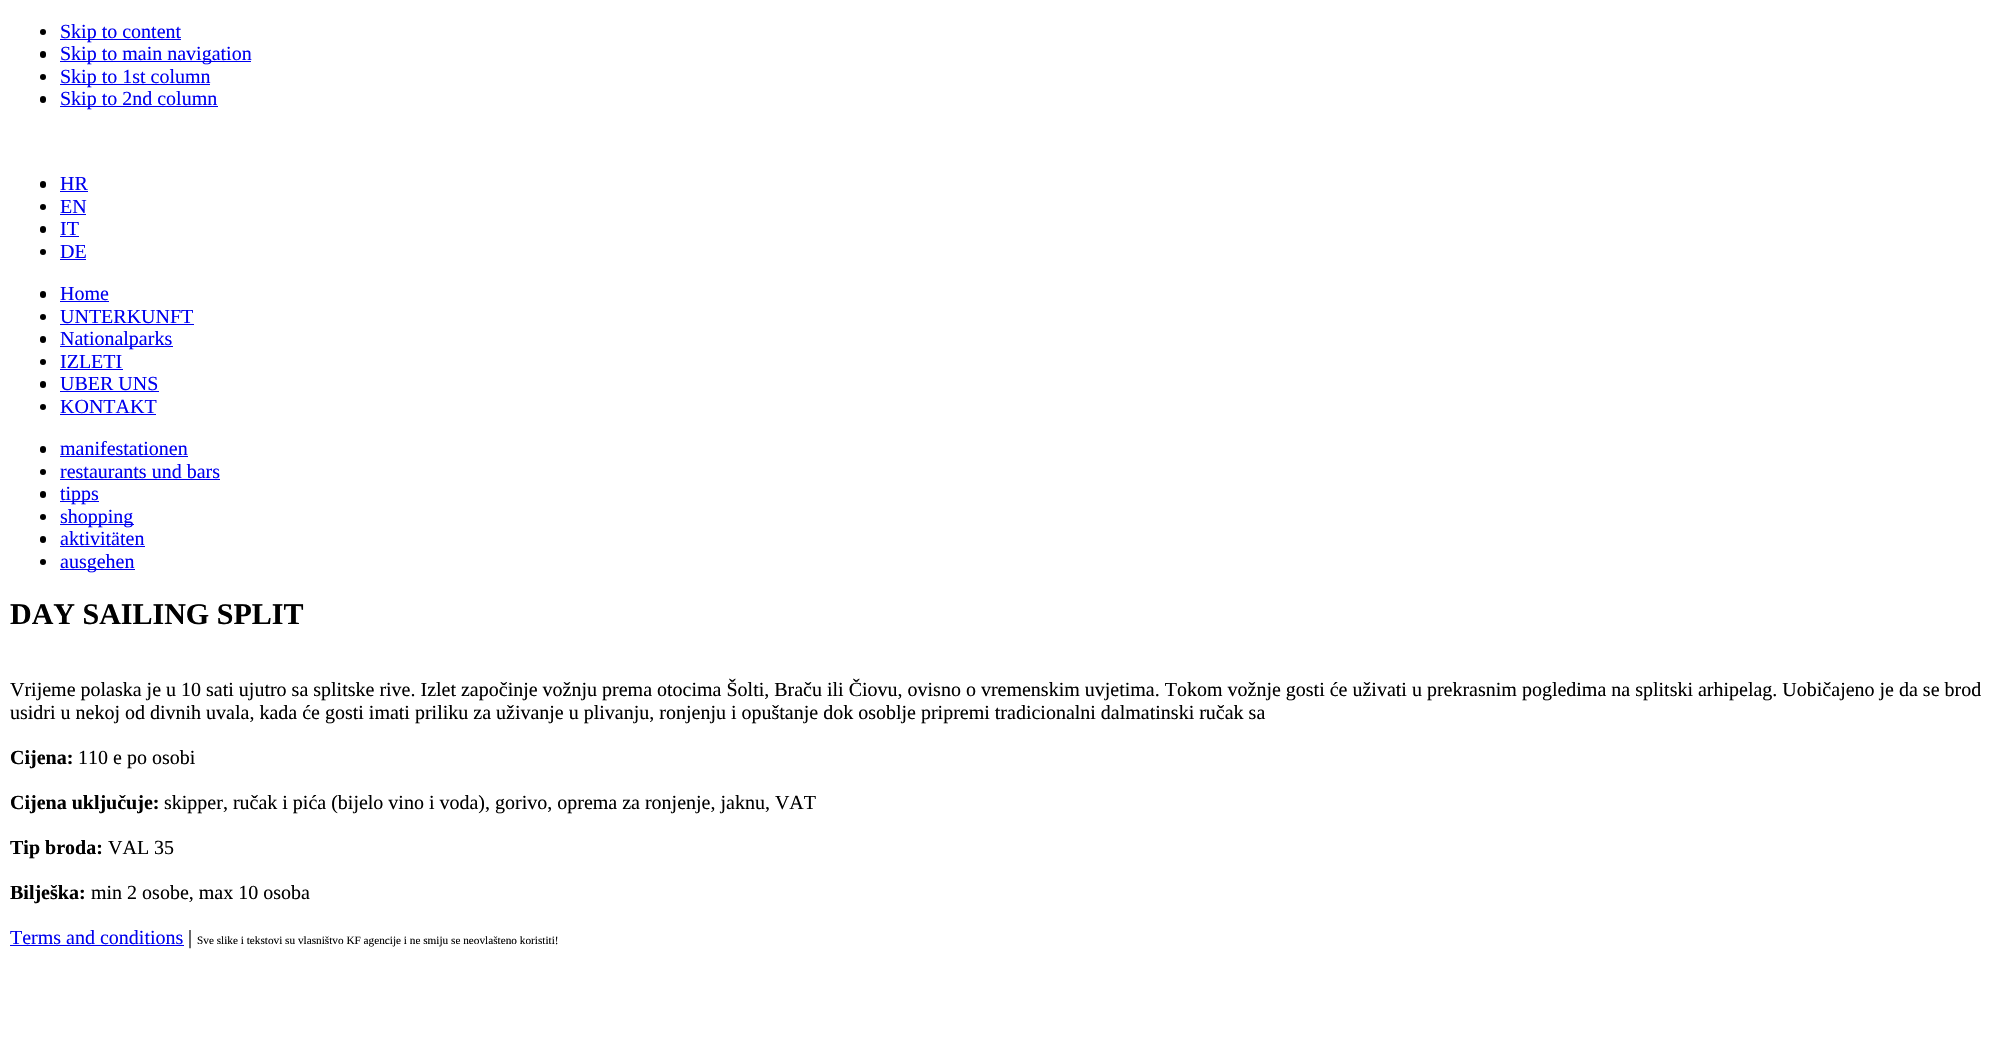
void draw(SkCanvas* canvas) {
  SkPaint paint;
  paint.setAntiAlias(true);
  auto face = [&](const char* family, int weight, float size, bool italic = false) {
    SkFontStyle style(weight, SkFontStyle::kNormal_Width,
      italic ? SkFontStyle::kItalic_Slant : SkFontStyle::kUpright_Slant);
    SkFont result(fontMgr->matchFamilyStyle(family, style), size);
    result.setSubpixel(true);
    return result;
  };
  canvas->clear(0xffffffff);
  paint.setColor(0xff000000);
  canvas->drawCircle(43, 32, 3, paint);
  paint.setColor(0xff0000ee);
  canvas->drawRect(SkRect::MakeXYWH(60, 39, 121, 1), paint);
  paint.setColor(0xff000000);
  canvas->drawRoundRect(SkRect::MakeXYWH(40, 51, 6, 7), 3, 3, paint);
  paint.setColor(0xff0000ee);
  canvas->drawRect(SkRect::MakeXYWH(60, 61, 191, 1), paint);
  paint.setColor(0xff000000);
  canvas->drawCircle(43, 77, 3, paint);
  paint.setColor(0xff0000ee);
  canvas->drawRect(SkRect::MakeXYWH(60, 84, 150, 1), paint);
  paint.setColor(0xff000000);
  canvas->drawRoundRect(SkRect::MakeXYWH(40, 96, 6, 7), 3, 3, paint);
  paint.setColor(0xff0000ee);
  canvas->drawRect(SkRect::MakeXYWH(60, 106, 158, 1), paint);
  paint.setColor(0xff000000);
  canvas->drawRoundRect(SkRect::MakeXYWH(40, 181, 6, 7), 3, 3, paint);
  paint.setColor(0xff0000ee);
  canvas->drawRect(SkRect::MakeXYWH(60, 191, 28, 1), paint);
  paint.setColor(0xff000000);
  canvas->drawCircle(43, 207, 3, paint);
  paint.setColor(0xff0000ee);
  canvas->drawRect(SkRect::MakeXYWH(60, 214, 26, 1), paint);
  paint.setColor(0xff000000);
  canvas->drawRoundRect(SkRect::MakeXYWH(40, 226, 6, 7), 3, 3, paint);
  paint.setColor(0xff0000ee);
  canvas->drawRect(SkRect::MakeXYWH(60, 236, 19, 1), paint);
  paint.setColor(0xff000000);
  canvas->drawCircle(43, 252, 3, paint);
  paint.setColor(0xff0000ee);
  canvas->drawRect(SkRect::MakeXYWH(60, 259, 26, 1), paint);
  paint.setColor(0xff000000);
  canvas->drawRoundRect(SkRect::MakeXYWH(40, 291, 6, 7), 3, 3, paint);
  paint.setColor(0xff0000ee);
  canvas->drawRect(SkRect::MakeXYWH(60, 301, 49, 1), paint);
  paint.setColor(0xff000000);
  canvas->drawCircle(43, 317, 3, paint);
  paint.setColor(0xff0000ee);
  canvas->drawRect(SkRect::MakeXYWH(60, 324, 134, 1), paint);
  paint.setColor(0xff000000);
  canvas->drawRoundRect(SkRect::MakeXYWH(40, 336, 6, 7), 3, 3, paint);
  paint.setColor(0xff0000ee);
  canvas->drawRect(SkRect::MakeXYWH(60, 346, 113, 1), paint);
  paint.setColor(0xff000000);
  canvas->drawCircle(43, 362, 3, paint);
  paint.setColor(0xff0000ee);
  canvas->drawRect(SkRect::MakeXYWH(60, 369, 63, 1), paint);
  paint.setColor(0xff000000);
  canvas->drawRoundRect(SkRect::MakeXYWH(40, 381, 6, 7), 3, 3, paint);
  paint.setColor(0xff0000ee);
  canvas->drawRect(SkRect::MakeXYWH(60, 391, 99, 1), paint);
  paint.setColor(0xff000000);
  canvas->drawCircle(43, 407, 3, paint);
  paint.setColor(0xff0000ee);
  canvas->drawRect(SkRect::MakeXYWH(60, 414, 96, 1), paint);
  paint.setColor(0xff000000);
  canvas->drawRoundRect(SkRect::MakeXYWH(40, 446, 6, 7), 3, 3, paint);
  paint.setColor(0xff0000ee);
  canvas->drawRect(SkRect::MakeXYWH(60, 456, 128, 1), paint);
  paint.setColor(0xff000000);
  canvas->drawCircle(43, 472, 3, paint);
  paint.setColor(0xff0000ee);
  canvas->drawRect(SkRect::MakeXYWH(60, 479, 160, 1), paint);
  paint.setColor(0xff000000);
  canvas->drawRoundRect(SkRect::MakeXYWH(40, 491, 6, 7), 3, 3, paint);
  paint.setColor(0xff0000ee);
  canvas->drawRect(SkRect::MakeXYWH(60, 501, 39, 1), paint);
  paint.setColor(0xff000000);
  canvas->drawCircle(43, 517, 3, paint);
  paint.setColor(0xff0000ee);
  canvas->drawRect(SkRect::MakeXYWH(60, 524, 74, 1), paint);
  paint.setColor(0xff000000);
  canvas->drawRoundRect(SkRect::MakeXYWH(40, 536, 6, 7), 3, 3, paint);
  paint.setColor(0xff0000ee);
  canvas->drawRect(SkRect::MakeXYWH(60, 546, 85, 1), paint);
  paint.setColor(0xff000000);
  canvas->drawCircle(43, 562, 3, paint);
  paint.setColor(0xff0000ee);
  canvas->drawRect(SkRect::MakeXYWH(60, 569, 75, 1), paint);
  canvas->drawRect(SkRect::MakeXYWH(10, 945, 174, 1), paint);
  auto f0 = face("Liberation Serif", 400, 20);
  {
    const struct { const char* s; float x, y; } items[] = {
      {"Skip to content", 60, 38},
      {"Skip to main navigation", 60, 60},
      {"Skip to 1st column", 60, 83},
      {"Skip to 2nd column", 60, 105},
      {"HR", 60, 190},
      {"EN", 60, 213},
      {"IT", 60, 235},
      {"DE", 60, 258},
      {"Home", 60, 300},
      {"UNTERKUNFT", 60, 323},
      {"Nationalparks", 60, 345},
      {"IZLETI", 60, 368},
      {"UBER UNS", 60, 390},
      {"KONTAKT", 60, 413},
      {"manifestationen", 60, 455},
      {"restaurants und bars", 60, 478},
      {"tipps", 60, 500},
      {"shopping", 60, 523},
      {"aktivitäten", 60, 545},
      {"ausgehen", 60, 568},
    };
    for (auto [s, x, y] : items) {
      canvas->drawString(s, x, y, f0, paint);
    }
  }
  auto f1 = face("Liberation Serif", 700, 30);
  paint.setColor(0xff000000);
  canvas->drawString("DAY SAILING SPLIT", 10, 624, f1, paint);
  canvas->drawString("Vrijeme polaska je u 10 sati ujutro sa splitske rive. Izlet započinje vožnju prema otocima Šolti, Braču ili Čiovu, ovisno o vremenskim uvjetima. Tokom vožnje gosti će uživati u prekrasnim pogledima na splitski arhipelag. Uobičajeno je da se brod", 10, 696, f0, paint);
  canvas->drawString("usidri u nekoj od divnih uvala, kada će gosti imati priliku za uživanje u plivanju, ronjenju i opuštanje dok osoblje pripremi tradicionalni dalmatinski ručak sa", 10, 719, f0, paint);
  auto f2 = face("Liberation Serif", 700, 20);
  canvas->drawString("Cijena:", 10, 764, f2, paint);
  canvas->drawString("110 e po osobi", 78, 764, f0, paint);
  canvas->drawString("Cijena uključuje:", 10, 809, f2, paint);
  canvas->drawString("skipper, ručak i pića (bijelo vino i voda), gorivo, oprema za ronjenje, jaknu, VAT", 164, 809, f0, paint);
  canvas->drawString("Tip broda:", 10, 854, f2, paint);
  canvas->drawString("VAL 35", 108, 854, f0, paint);
  canvas->drawString("Bilješka:", 10, 899, f2, paint);
  canvas->drawString("min 2 osobe, max 10 osoba", 91, 899, f0, paint);
  paint.setColor(0xff0000ee);
  canvas->drawString("Terms and conditions", 10, 944, f0, paint);
  paint.setColor(0xff000000);
  canvas->drawString("|", 188, 944, f0, paint);
  auto f3 = face("Liberation Serif", 400, 11.25f);
  canvas->drawString("Sve slike i tekstovi su vlasništvo KF agencije i ne smiju se neovlašteno koristiti!", 197, 944, f3, paint);
}
